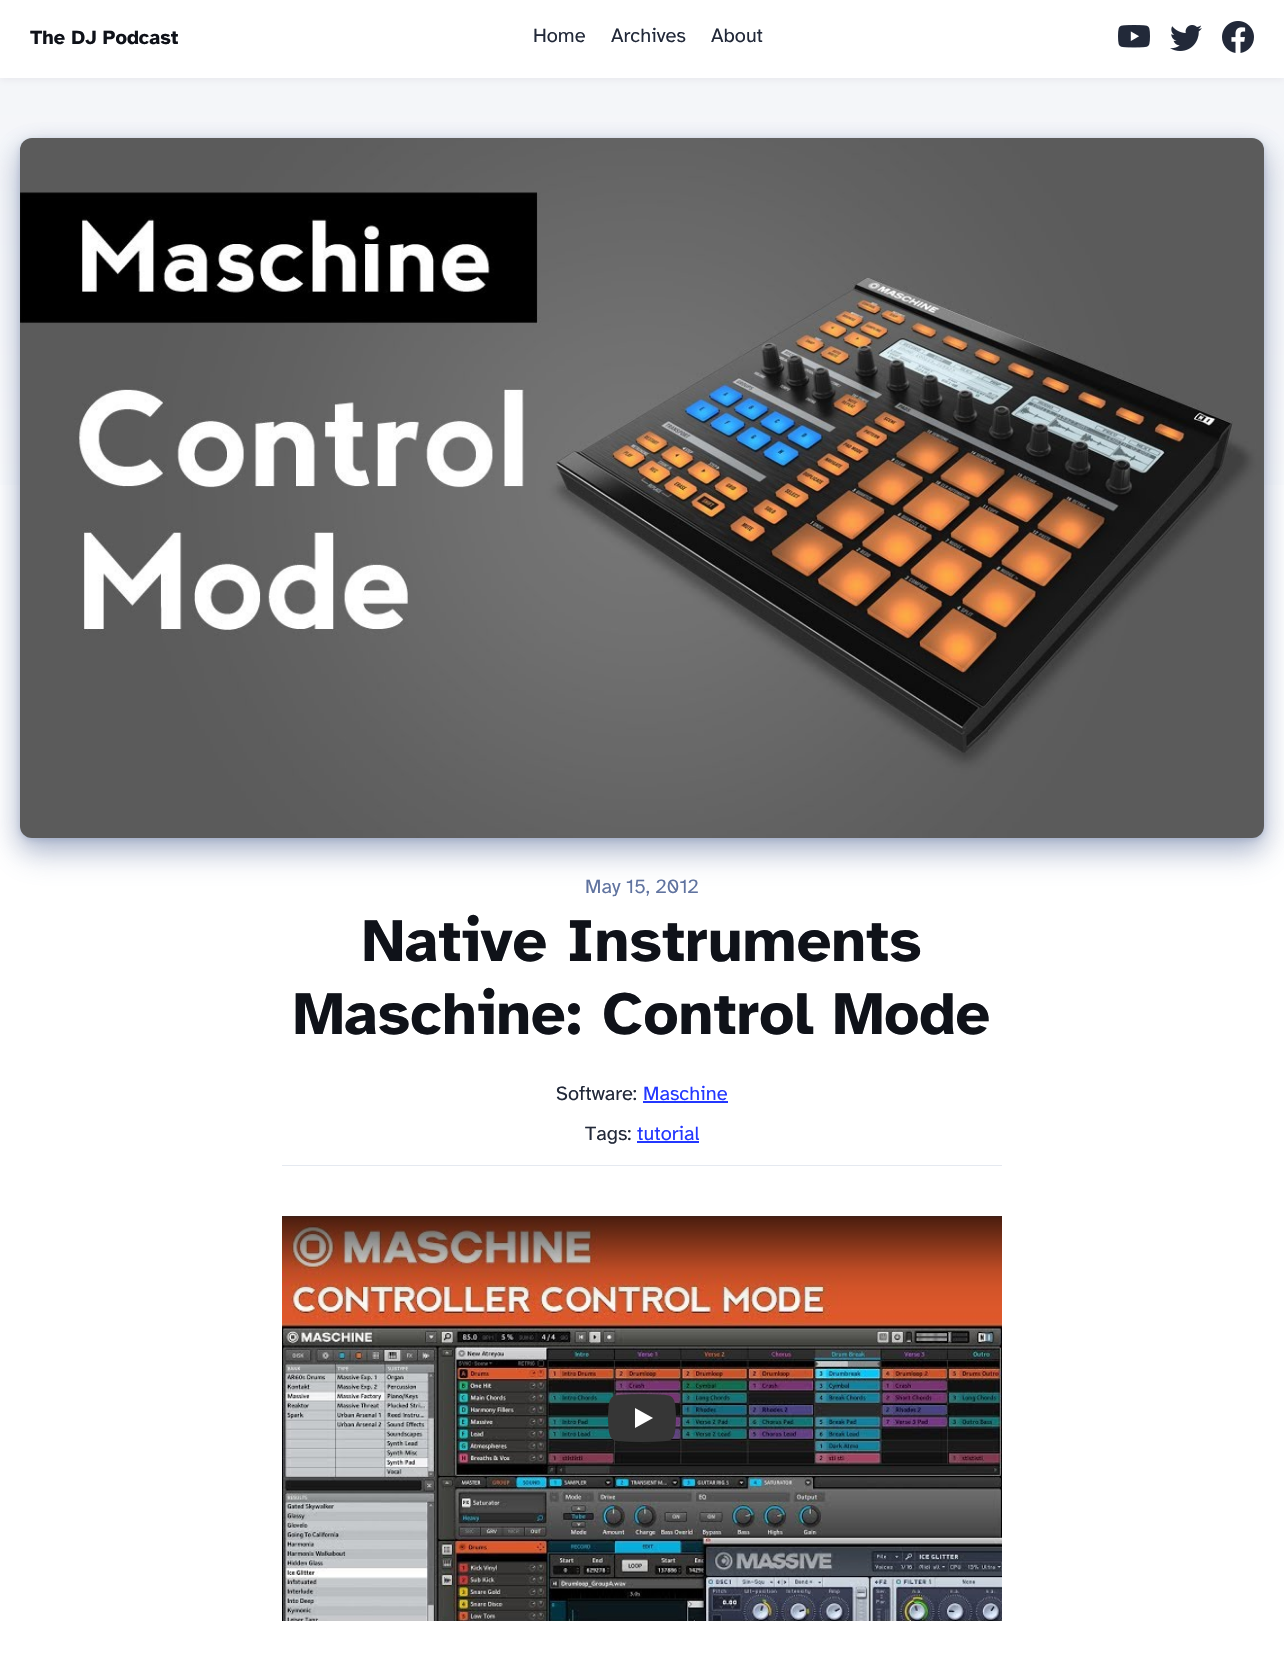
void draw(SkCanvas* canvas) {
  SkPaint paint;
  paint.setAntiAlias(true);
  auto face = [&](const char* family, int weight, float size, bool italic = false) {
    SkFontStyle style(weight, SkFontStyle::kNormal_Width,
      italic ? SkFontStyle::kItalic_Slant : SkFontStyle::kUpright_Slant);
    SkFont result(fontMgr->matchFamilyStyle(family, style), size);
    result.setSubpixel(true);
    return result;
  };
  auto paste = [&](const char* path, float x, float y, float w, float h) {
    auto image = SkImages::DeferredFromEncodedData(SkData::MakeFromFileName(path));
    canvas->drawImageRect(image, SkRect::MakeXYWH(x, y, w, h), SkSamplingOptions());
  };
  canvas->clear(0xffffffff);
  {
    const SkColor colors[] = {0xfff2f4f8, 0xffffffff};
    const float stops[] = {0, 1};
    const SkPoint ends[] = {{642, 0}, {642, 600}};
    paint.setShader(SkGradientShader::MakeLinear(ends, colors, stops, 2, SkTileMode::kClamp));
    paint.setAlpha(255);
  }
  canvas->drawRect(SkRect::MakeXYWH(0, 78, 1284, 407), paint);
  paint.setShader(nullptr);
  paint.setColor(0x0d0f1219);
  paint.setMaskFilter(SkMaskFilter::MakeBlur(kNormal_SkBlurStyle, 4));
  canvas->drawRect(SkRect::MakeXYWH(0, 2, 1284, 78), paint);
  paint.setMaskFilter(nullptr);
  paint.setColor(0xffffffff);
  canvas->drawRect(SkRect::MakeXYWH(0, 0, 1284, 78), paint);
  paste("img/1.png", 1118, 25, 32, 23);
  paste("img/2.png", 1170, 25, 32, 26);
  paste("img/3.png", 1222, 21, 32, 32);
  paint.setColor(0x5460739f);
  paint.setMaskFilter(SkMaskFilter::MakeBlur(kNormal_SkBlurStyle, 16));
  canvas->drawRoundRect(SkRect::MakeXYWH(20, 154, 1244, 700), 12, 12, paint);
  paint.setMaskFilter(nullptr);
  paint.setMaskFilter(SkMaskFilter::MakeBlur(kNormal_SkBlurStyle, 12));
  canvas->drawRoundRect(SkRect::MakeXYWH(20, 146, 1244, 700), 12, 12, paint);
  paint.setMaskFilter(nullptr);
  paint.setColor(0x4060739f);
  paint.setMaskFilter(SkMaskFilter::MakeBlur(kNormal_SkBlurStyle, 3));
  canvas->drawRoundRect(SkRect::MakeXYWH(20, 140, 1244, 700), 12, 12, paint);
  paint.setMaskFilter(nullptr);
  paste("img/4.png", 20, 138, 1244, 700);
  {
    const struct { float x, y, w, h; SkColor color; } items[] = {
      {643, 1101, 85, 2, 0xff2337ff},
      {637, 1141, 62, 2, 0xff2337ff},
      {282, 1165, 720, 1, 0xffe5e9f0},
    };
    for (auto [x, y, w, h, color] : items) {
      paint.setColor(color);
      canvas->drawRect(SkRect::MakeXYWH(x, y, w, h), paint);
    }
  }
  paste("img/5.png", 282, 1216, 720, 405);
  paste("img/6.png", 608, 1394, 68, 48);
  auto f0 = face("Atkinson Hyperlegible", 700, 20);
  paint.setColor(0xff0f1219);
  canvas->drawString("The DJ Podcast", 30, 44, f0, paint);
  auto f1 = face("Atkinson Hyperlegible", 400, 20);
  paint.setColor(0xff222939);
  {
    const struct { const char* s; float x, y; } items[] = {
      {"Home", 533, 42},
      {"Archives", 611, 42},
      {"About", 711, 42},
    };
    for (auto [s, x, y] : items) {
      canvas->drawString(s, x, y, f1, paint);
    }
  }
  paint.setColor(0xff60739f);
  canvas->drawString("May 15, 2012", 585, 893, f1, paint);
  auto f2 = face("Atkinson Hyperlegible", 700, 61);
  paint.setColor(0xff0f1219);
  canvas->drawString("Native Instruments", 362, 961, f2, paint);
  canvas->drawString("Maschine: Control Mode", 293, 1034, f2, paint);
  paint.setColor(0xff222939);
  canvas->drawString("Software:", 556, 1100, f1, paint);
  paint.setColor(0xff2337ff);
  canvas->drawString("Maschine", 643, 1100, f1, paint);
  paint.setColor(0xff222939);
  canvas->drawString("Tags:", 585, 1140, f1, paint);
  paint.setColor(0xff2337ff);
  canvas->drawString("tutorial", 637, 1140, f1, paint);
}
